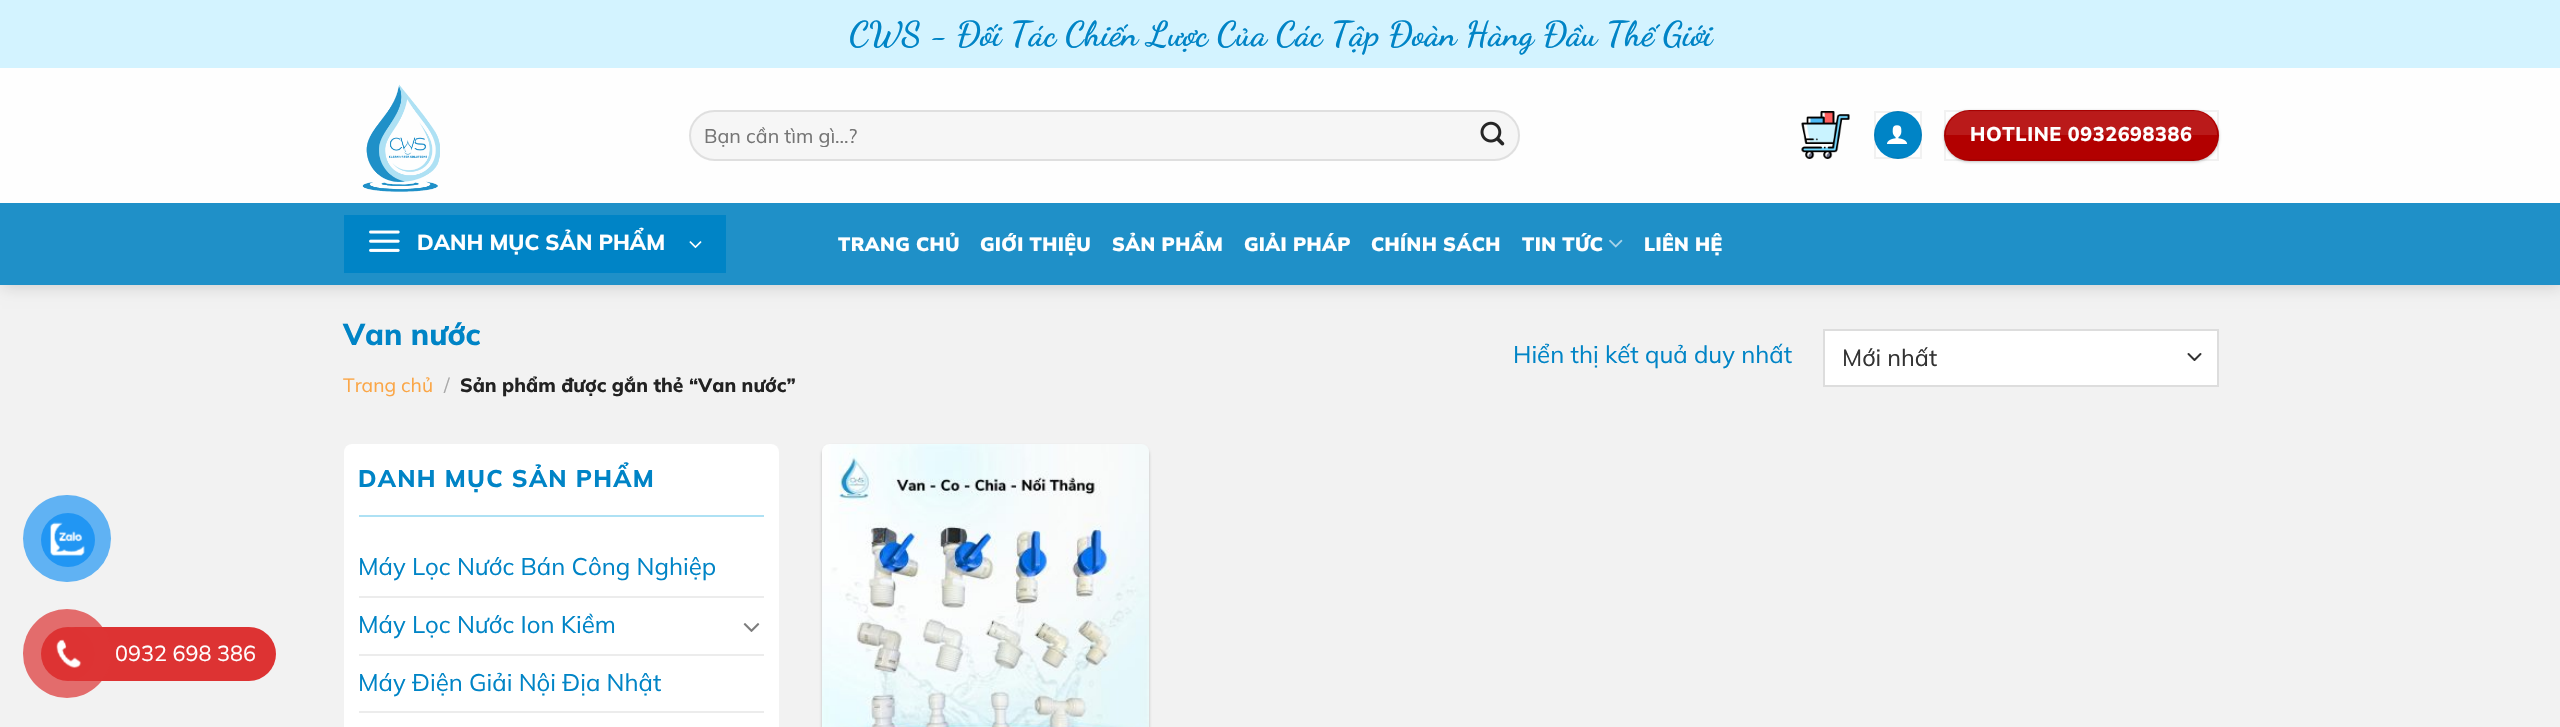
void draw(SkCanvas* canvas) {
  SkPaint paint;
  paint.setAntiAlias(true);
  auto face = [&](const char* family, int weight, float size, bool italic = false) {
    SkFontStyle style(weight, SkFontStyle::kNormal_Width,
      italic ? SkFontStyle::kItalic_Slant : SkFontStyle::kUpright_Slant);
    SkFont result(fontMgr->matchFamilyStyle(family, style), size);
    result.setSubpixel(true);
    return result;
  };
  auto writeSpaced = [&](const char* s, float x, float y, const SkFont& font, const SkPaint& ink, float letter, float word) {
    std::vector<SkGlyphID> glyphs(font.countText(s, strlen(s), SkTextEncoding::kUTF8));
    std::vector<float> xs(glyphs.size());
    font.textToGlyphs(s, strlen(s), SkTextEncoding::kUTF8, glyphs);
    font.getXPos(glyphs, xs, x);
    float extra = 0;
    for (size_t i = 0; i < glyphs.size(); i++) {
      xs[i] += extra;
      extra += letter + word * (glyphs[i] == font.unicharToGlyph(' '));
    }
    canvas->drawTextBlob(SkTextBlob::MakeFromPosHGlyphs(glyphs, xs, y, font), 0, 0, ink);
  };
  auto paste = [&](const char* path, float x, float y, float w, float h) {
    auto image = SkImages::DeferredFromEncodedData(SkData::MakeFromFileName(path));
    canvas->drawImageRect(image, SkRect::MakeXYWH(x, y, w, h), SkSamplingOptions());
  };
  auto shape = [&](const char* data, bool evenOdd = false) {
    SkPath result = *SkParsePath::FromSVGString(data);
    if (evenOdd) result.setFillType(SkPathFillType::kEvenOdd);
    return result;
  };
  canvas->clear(0xfff2f2f2);
  paint.setColor(0xff60b2f3);
  canvas->drawRoundRect(SkRect::MakeXYWH(23, 495, 88, 87), 43.5f, 43.5f, paint);
  paint.setColor(0xff2196f3);
  canvas->drawCircle(68, 540, 27, paint);
  paste("img/1.png", 50, 522, 35, 34);
  paint.setColor(0xffdd3333);
  canvas->drawRoundRect(SkRect::MakeXYWH(48, 627, 228, 54), 27, 27, paint);
  paint.setColor(0xb3dd3333);
  canvas->drawRoundRect(SkRect::MakeXYWH(23, 609, 88, 89), 44, 44, paint);
  paint.setColor(0xffdd3333);
  canvas->drawCircle(68, 654, 27, paint);
  paste("img/2.png", 56, 639, 26, 29);
  paint.setColor(0x26000000);
  paint.setMaskFilter(SkMaskFilter::MakeBlur(kNormal_SkBlurStyle, 7.5f));
  canvas->drawRect(SkRect::MakeXYWH(2, 2, 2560, 285), paint);
  paint.setMaskFilter(nullptr);
  paint.setColor(0xffd3f3ff);
  canvas->drawRect(SkRect::MakeXYWH(0, 0, 2560, 68), paint);
  paint.setColor(0xfffefefe);
  canvas->drawRect(SkRect::MakeXYWH(0, 68, 2560, 135), paint);
  paste("img/3.png", 362, 84, 78, 108);
  paint.setColor(0xfff6f6f6);
  canvas->drawRoundRect(SkRect::MakeXYWH(689, 110, 831, 51), 25.5f, 25.5f, paint);
  paint.setStroke(true);
  paint.setStrokeWidth(2);
  paint.setColor(0x17000000);
  canvas->drawRoundRect(SkRect::MakeXYWH(690, 111, 829, 49), 24.5f, 24.5f, paint);
  paste("img/4.png", 1480, 121, 25, 25);
  paste("img/5.png", 1801, 111, 49, 48);
  paint.setStroke(false);
  paint.setColor(0xff0084c6);
  canvas->drawCircle(1898, 135, 24, paint);
  paint.setStroke(true);
  paint.setColor(0x0d000000);
  canvas->drawRect(SkRect::MakeXYWH(1875, 112, 46, 46), paint);
  paste("img/6.png", 1887, 125, 21, 19);
  paint.setStroke(false);
  paint.setColor(0x3d000000);
  paint.setMaskFilter(SkMaskFilter::MakeBlur(kNormal_SkBlurStyle, 1.5f));
  canvas->drawRoundRect(SkRect::MakeXYWH(1944, 111, 275, 51), 25.5f, 25.5f, paint);
  paint.setMaskFilter(nullptr);
  paint.setColor(0xffb20000);
  canvas->drawRoundRect(SkRect::MakeXYWH(1944, 110, 275, 51), 25.5f, 25.5f, paint);
  paint.setStroke(true);
  paint.setColor(0x0d000000);
  canvas->drawRect(SkRect::MakeXYWH(1945, 111, 273, 49), paint);
  paint.setStroke(false);
  paint.setColor(0x1affffff);
  canvas->drawPath(shape("M1970 111H2193C2206.5 111 2217 121.5 2217 135H1946C1946 121.5 1956.5 111 1970 111Z"), paint);
  paint.setColor(0xff1f90c8);
  canvas->drawRect(SkRect::MakeXYWH(0, 203, 2560, 82), paint);
  paint.setColor(0xff0084c6);
  canvas->drawRect(SkRect::MakeXYWH(344, 215, 382, 58), paint);
  paste("img/7.png", 369, 230, 31, 22);
  paste("img/8.png", 689, 241, 13, 8);
  paste("img/9.png", 1609, 239, 14, 9);
  paint.setColor(0xffffffff);
  canvas->drawRect(SkRect::MakeXYWH(1825, 331, 392, 54), paint);
  paint.setStroke(true);
  paint.setStrokeCap(SkPaint::kRound_Cap);
  paint.setStrokeJoin(SkPaint::kRound_Join);
  paint.setColor(0xff333333);
  canvas->drawPath(shape("M2188.5 354L2194.5 360L2200.5 354"), paint);
  paint.setStrokeCap(SkPaint::kButt_Cap);
  paint.setStrokeJoin(SkPaint::kMiter_Join);
  paint.setColor(0xffdddddd);
  canvas->drawRect(SkRect::MakeXYWH(1824, 330, 394, 56), paint);
  paint.setStroke(false);
  paint.setColor(0xffffffff);
  canvas->drawRoundRect(SkRect::MakeXYWH(344, 444, 435, 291), 8, 8, paint);
  paint.setColor(0xffaee1f4);
  canvas->drawRect(SkRect::MakeXYWH(359, 515, 405, 2), paint);
  paint.setColor(0xffececec);
  canvas->drawRect(SkRect::MakeXYWH(359, 596, 405, 2), paint);
  paste("img/10.png", 743, 623, 17, 9);
  canvas->drawRect(SkRect::MakeXYWH(359, 654, 405, 2), paint);
  canvas->drawRect(SkRect::MakeXYWH(359, 711, 405, 2), paint);
  paint.setColor(0x3d000000);
  paint.setMaskFilter(SkMaskFilter::MakeBlur(kNormal_SkBlurStyle, 1.5f));
  canvas->drawRoundRect(SkRect::MakeXYWH(822, 446, 327, 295), 9, 9, paint);
  paint.setMaskFilter(nullptr);
  paste("img/11.png", 822, 444, 327, 283);
  auto f0 = face("Mulish", 400, 21.6f);
  paint.setColor(0xffffffff);
  canvas->drawString("0932 698 386", 115, 661, f0, paint);
  auto f1 = face("Dancing Script", 700, 34.5f);
  paint.setColor(0xff0084c6);
  canvas->drawString("CWS - Đối Tác Chiến Lược Của Các Tập Đoàn Hàng Đầu Thế Giới", 849, 45, f1, paint);
  canvas->save();
  canvas->clipRect(SkRect::MakeXYWH(704, 123, 793, 24));
  auto f2 = face("Mulish", 400, 19.75f);
  paint.setColor(0xff757575);
  canvas->drawString("Bạn cần tìm gì...?", 704, 143, f2, paint);
  canvas->restore();
  auto f3 = face("Mulish", 800, 19.75f);
  paint.setColor(0xffffffff);
  writeSpaced("HOTLINE 0932698386", 1970, 141, f3, paint, 0.6f, 0);
  auto f4 = face("Mulish", 800, 21.6f);
  canvas->drawString("DANH MỤC SẢN PHẨM", 417, 250, f4, paint);
  auto f5 = face("Mulish", 900, 19.25f);
  {
    const struct { const char* s; float x, y; } items[] = {
      {"TRANG CHỦ", 838, 251},
      {"GIỚI THIỆU", 980, 251},
      {"SẢN PHẨM", 1112, 251},
      {"GIẢI PHÁP", 1244, 251},
      {"CHÍNH SÁCH", 1371, 251},
      {"TIN TỨC", 1522, 251},
      {"LIÊN HỆ", 1644, 251},
    };
    for (auto [s, x, y] : items) {
      writeSpaced(s, x, y, f5, paint, 0.4f, 0);
    }
  }
  auto f6 = face("Mulish", 800, 30);
  paint.setColor(0xff0084c6);
  canvas->drawString("Van nước", 343, 345, f6, paint);
  auto f7 = face("Mulish", 400, 19.25f);
  paint.setColor(0xfffba646);
  canvas->drawString("Trang chủ", 343, 392, f7, paint);
  paint.setColor(0xffa9a9a9);
  canvas->drawString("/", 444, 392, f7, paint);
  auto f8 = face("Mulish", 800, 19.25f);
  paint.setColor(0xff222222);
  canvas->drawString("Sản phẩm được gắn thẻ “Van nước”", 460, 392, f8, paint);
  auto f9 = face("Mulish", 400, 24);
  paint.setColor(0xff0084c6);
  canvas->drawString("Hiển thị kết quả duy nhất", 1513, 363, f9, paint);
  auto f10 = face("Mulish", 400, 23.5f);
  paint.setColor(0xff333333);
  canvas->drawString("Mới nhất", 1842, 366, f10, paint);
  auto f11 = face("Mulish", 800, 24);
  paint.setColor(0xff0084c6);
  writeSpaced("DANH MỤC SẢN PHẨM", 358, 487, f11, paint, 1.25f, 0);
  {
    const struct { const char* s; float x, y; } items[] = {
      {"Máy Lọc Nước Bán Công Nghiệp", 358, 575},
      {"Máy Lọc Nước Ion Kiềm", 358, 633},
      {"Máy Điện Giải Nội Địa Nhật", 358, 691},
    };
    for (auto [s, x, y] : items) {
      canvas->drawString(s, x, y, f9, paint);
    }
  }
}
